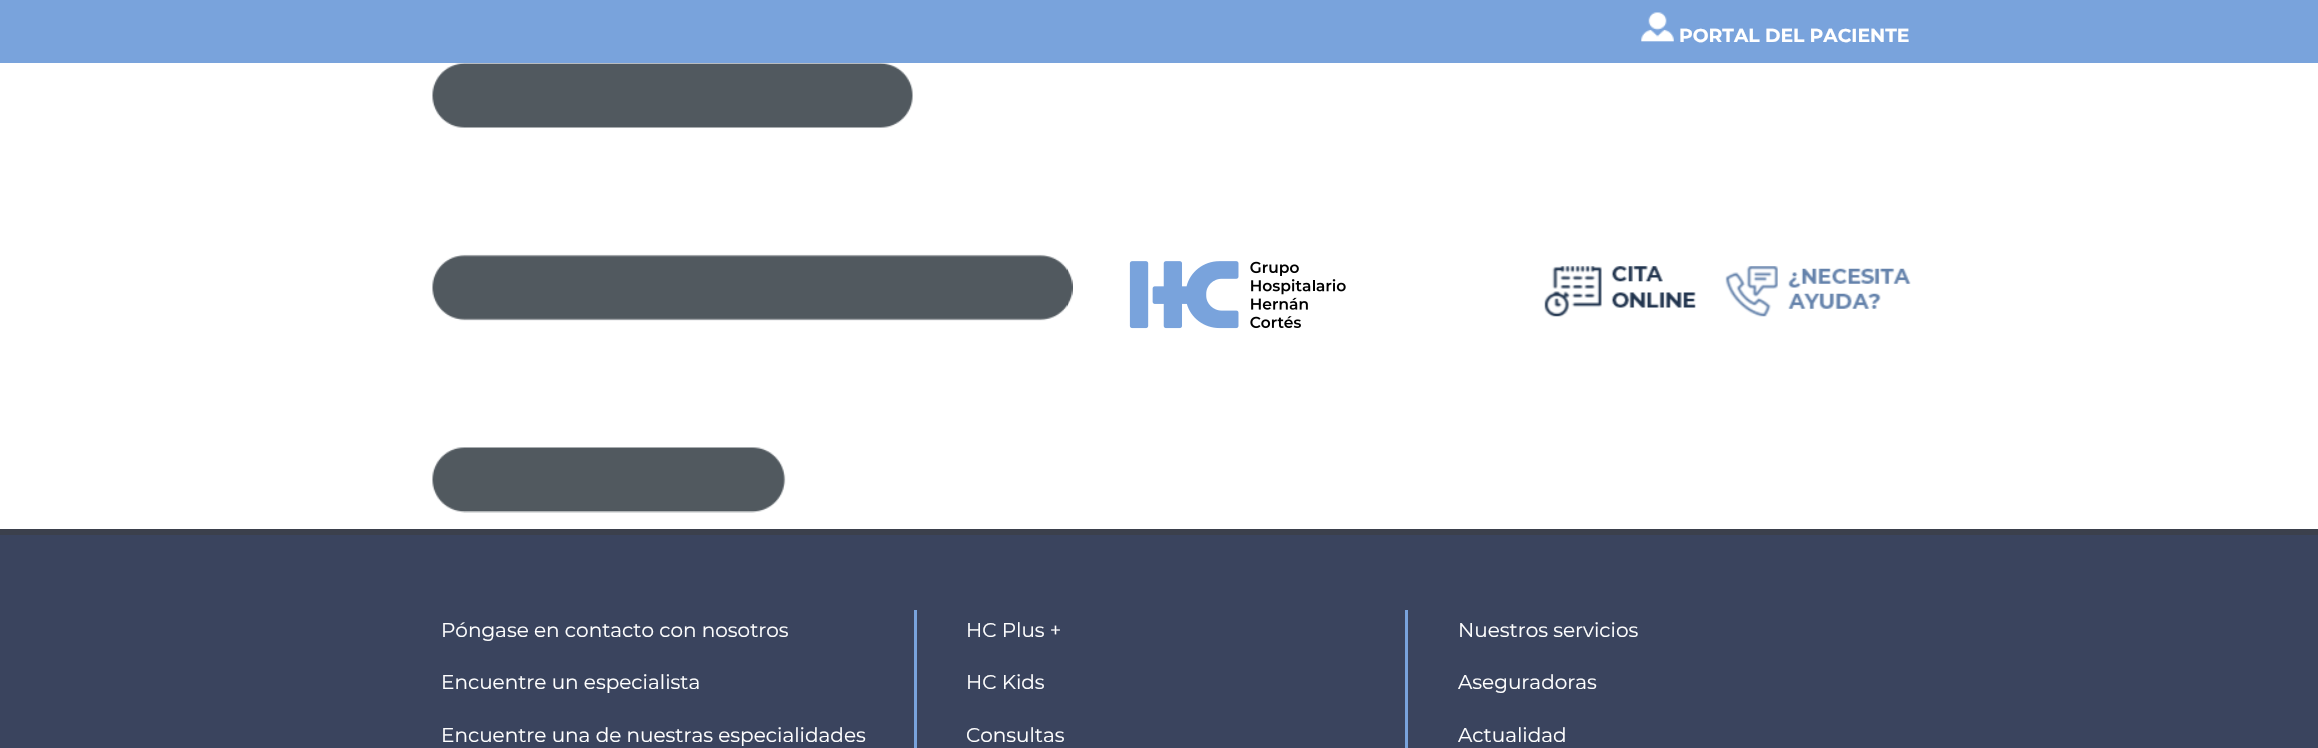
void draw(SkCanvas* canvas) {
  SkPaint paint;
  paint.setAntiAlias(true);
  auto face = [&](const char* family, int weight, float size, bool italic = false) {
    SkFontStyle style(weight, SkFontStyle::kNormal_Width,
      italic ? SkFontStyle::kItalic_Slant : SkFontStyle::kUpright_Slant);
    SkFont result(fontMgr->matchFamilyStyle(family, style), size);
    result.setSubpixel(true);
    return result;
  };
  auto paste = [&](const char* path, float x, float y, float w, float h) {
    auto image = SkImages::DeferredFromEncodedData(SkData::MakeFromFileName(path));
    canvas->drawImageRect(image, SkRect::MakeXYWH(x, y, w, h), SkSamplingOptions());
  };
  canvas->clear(0xffffffff);
  paint.setColor(0xff79a3dc);
  canvas->drawRect(SkRect::MakeXYWH(0, 0, 2318, 63), paint);
  paste("img/1.png", 1641, 12, 33, 30);
  paste("img/2.png", 432, 63, 641, 450);
  paste("img/3.png", 1129, 261, 217, 68);
  paste("img/4.png", 1544, 266, 152, 51);
  paste("img/5.png", 1725, 266, 186, 51);
  {
    const struct { float x, y, w, h; SkColor color; } items[] = {
      {0, 535, 2318, 213, 0xff3a445e},
      {0, 529, 2318, 6, 0xff3b404c},
      {914, 610, 3, 138, 0xff79a3dc},
      {1405, 610, 3, 138, 0xff79a3dc},
    };
    for (auto [x, y, w, h, color] : items) {
      paint.setColor(color);
      canvas->drawRect(SkRect::MakeXYWH(x, y, w, h), paint);
    }
  }
  auto f0 = face("Montserrat", 700, 18.75f);
  paint.setColor(0xffffffff);
  canvas->drawString("PORTAL DEL PACIENTE", 1679, 42, f0, paint);
  auto f1 = face("Montserrat", 400, 20);
  {
    const struct { const char* s; float x, y; } items[] = {
      {"Póngase en contacto con nosotros", 441, 637},
      {"Encuentre un especialista", 441, 689},
      {"Encuentre una de nuestras especialidades", 441, 742},
      {"HC Plus +", 966, 637},
      {"HC Kids", 966, 689},
      {"Consultas", 966, 742},
      {"Nuestros servicios", 1458, 637},
      {"Aseguradoras", 1458, 689},
      {"Actualidad", 1458, 742},
    };
    for (auto [s, x, y] : items) {
      canvas->drawString(s, x, y, f1, paint);
    }
  }
}
